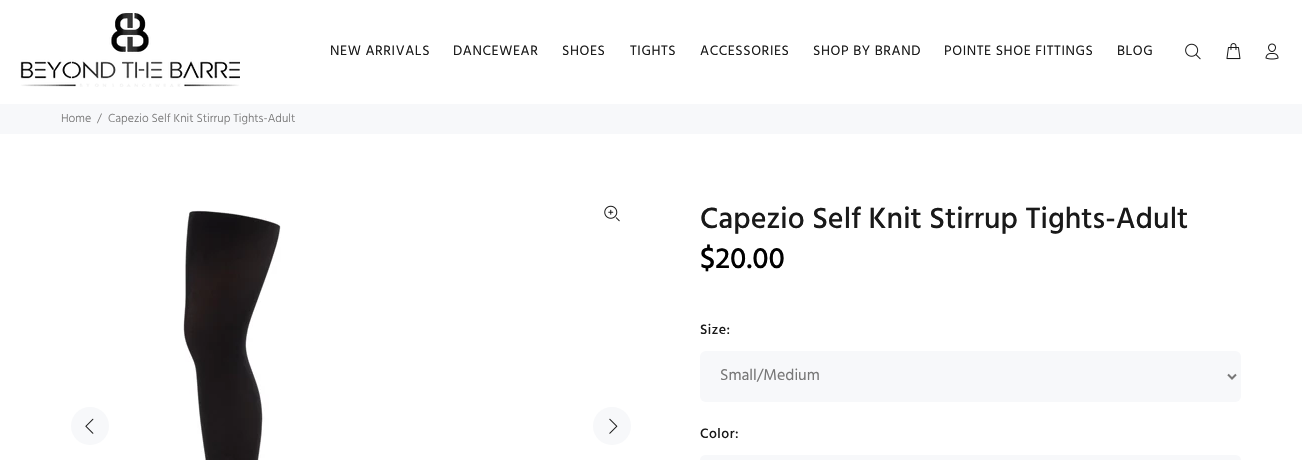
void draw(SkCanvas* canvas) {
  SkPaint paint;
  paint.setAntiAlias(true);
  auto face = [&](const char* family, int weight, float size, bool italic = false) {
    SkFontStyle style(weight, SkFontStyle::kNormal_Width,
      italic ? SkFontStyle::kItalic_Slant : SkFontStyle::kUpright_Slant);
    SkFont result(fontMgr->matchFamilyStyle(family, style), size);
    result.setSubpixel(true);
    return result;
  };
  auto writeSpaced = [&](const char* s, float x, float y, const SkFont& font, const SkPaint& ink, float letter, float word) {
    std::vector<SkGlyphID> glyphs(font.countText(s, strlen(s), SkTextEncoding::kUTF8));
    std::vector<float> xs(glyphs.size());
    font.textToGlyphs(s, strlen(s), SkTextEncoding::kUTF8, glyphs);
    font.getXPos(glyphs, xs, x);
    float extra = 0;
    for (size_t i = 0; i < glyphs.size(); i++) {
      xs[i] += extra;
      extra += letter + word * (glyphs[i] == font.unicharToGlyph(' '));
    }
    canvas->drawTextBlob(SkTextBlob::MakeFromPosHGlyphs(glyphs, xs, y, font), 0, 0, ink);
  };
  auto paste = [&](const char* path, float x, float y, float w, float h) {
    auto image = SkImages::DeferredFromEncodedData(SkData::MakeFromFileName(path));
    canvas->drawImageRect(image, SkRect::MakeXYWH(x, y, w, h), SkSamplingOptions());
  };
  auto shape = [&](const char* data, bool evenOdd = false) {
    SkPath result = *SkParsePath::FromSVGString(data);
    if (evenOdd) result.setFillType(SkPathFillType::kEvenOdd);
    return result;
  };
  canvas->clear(0xffffffff);
  paste("img/1.png", 20, 13, 220, 74);
  paste("img/2.png", 1185, 43, 16, 17);
  paste("img/3.png", 1226, 43, 15, 17);
  paste("img/4.png", 1265, 43, 14, 17);
  paint.setColor(0xfff7f8fa);
  canvas->drawRect(SkRect::MakeXYWH(0, 104, 1302, 30), paint);
  paste("img/5.png", 183, 210, 98, 250);
  paste("img/6.png", 604, 205, 16, 17);
  canvas->drawCircle(90, 426, 19, paint);
  paste("img/7.png", 85, 418, 9, 16);
  canvas->drawCircle(612, 426, 19, paint);
  paste("img/8.png", 609, 418, 9, 16);
  canvas->drawRoundRect(SkRect::MakeXYWH(700, 351, 541, 51), 6, 6, paint);
  paint.setStroke(true);
  paint.setStrokeWidth(2);
  paint.setColor(0xff777777);
  canvas->drawPath(shape("M1228 374.5L1232 378.5L1236 374.5"), paint);
  paint.setStroke(false);
  paint.setColor(0xfff7f8fa);
  canvas->drawRoundRect(SkRect::MakeXYWH(700, 455, 541, 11), 6, 6, paint);
  auto f0 = face("Hind", 400, 14);
  paint.setColor(0xff191919);
  {
    const struct { const char* s; float x, y; } items[] = {
      {"NEW ARRIVALS", 330, 55},
      {"DANCEWEAR", 453, 55},
      {"SHOES", 562, 55},
      {"TIGHTS", 630, 55},
      {"ACCESSORIES", 700, 55},
      {"SHOP BY BRAND", 813, 55},
      {"POINTE SHOE FITTINGS", 944, 55},
      {"BLOG", 1117, 55},
    };
    for (auto [s, x, y] : items) {
      writeSpaced(s, x, y, f0, paint, 0.6f, 0);
    }
  }
  auto f1 = face("Hind", 300, 12);
  paint.setColor(0xff777777);
  {
    const struct { const char* s; float x, y; } items[] = {
      {"Home", 61, 122},
      {"/", 97, 122},
      {"Capezio Self Knit Stirrup Tights-Adult", 108, 122},
    };
    for (auto [s, x, y] : items) {
      canvas->drawString(s, x, y, f1, paint);
    }
  }
  auto f2 = face("Hind", 500, 30);
  paint.setColor(0xff191919);
  writeSpaced("Capezio Self Knit Stirrup Tights-Adult", 700, 228, f2, paint, 0.05f, 0);
  paint.setColor(0xff000000);
  canvas->drawString("$20.00", 700, 268, f2, paint);
  auto f3 = face("Hind", 500, 14);
  paint.setColor(0xff191919);
  writeSpaced("Size:", 700, 334, f3, paint, 0.5f, 0);
  auto f4 = face("Hind", 400, 16);
  paint.setColor(0xff777777);
  canvas->drawString("Small/Medium", 720, 380, f4, paint);
  paint.setColor(0xff191919);
  writeSpaced("Color:", 700, 438, f3, paint, 0.5f, 0);
}
